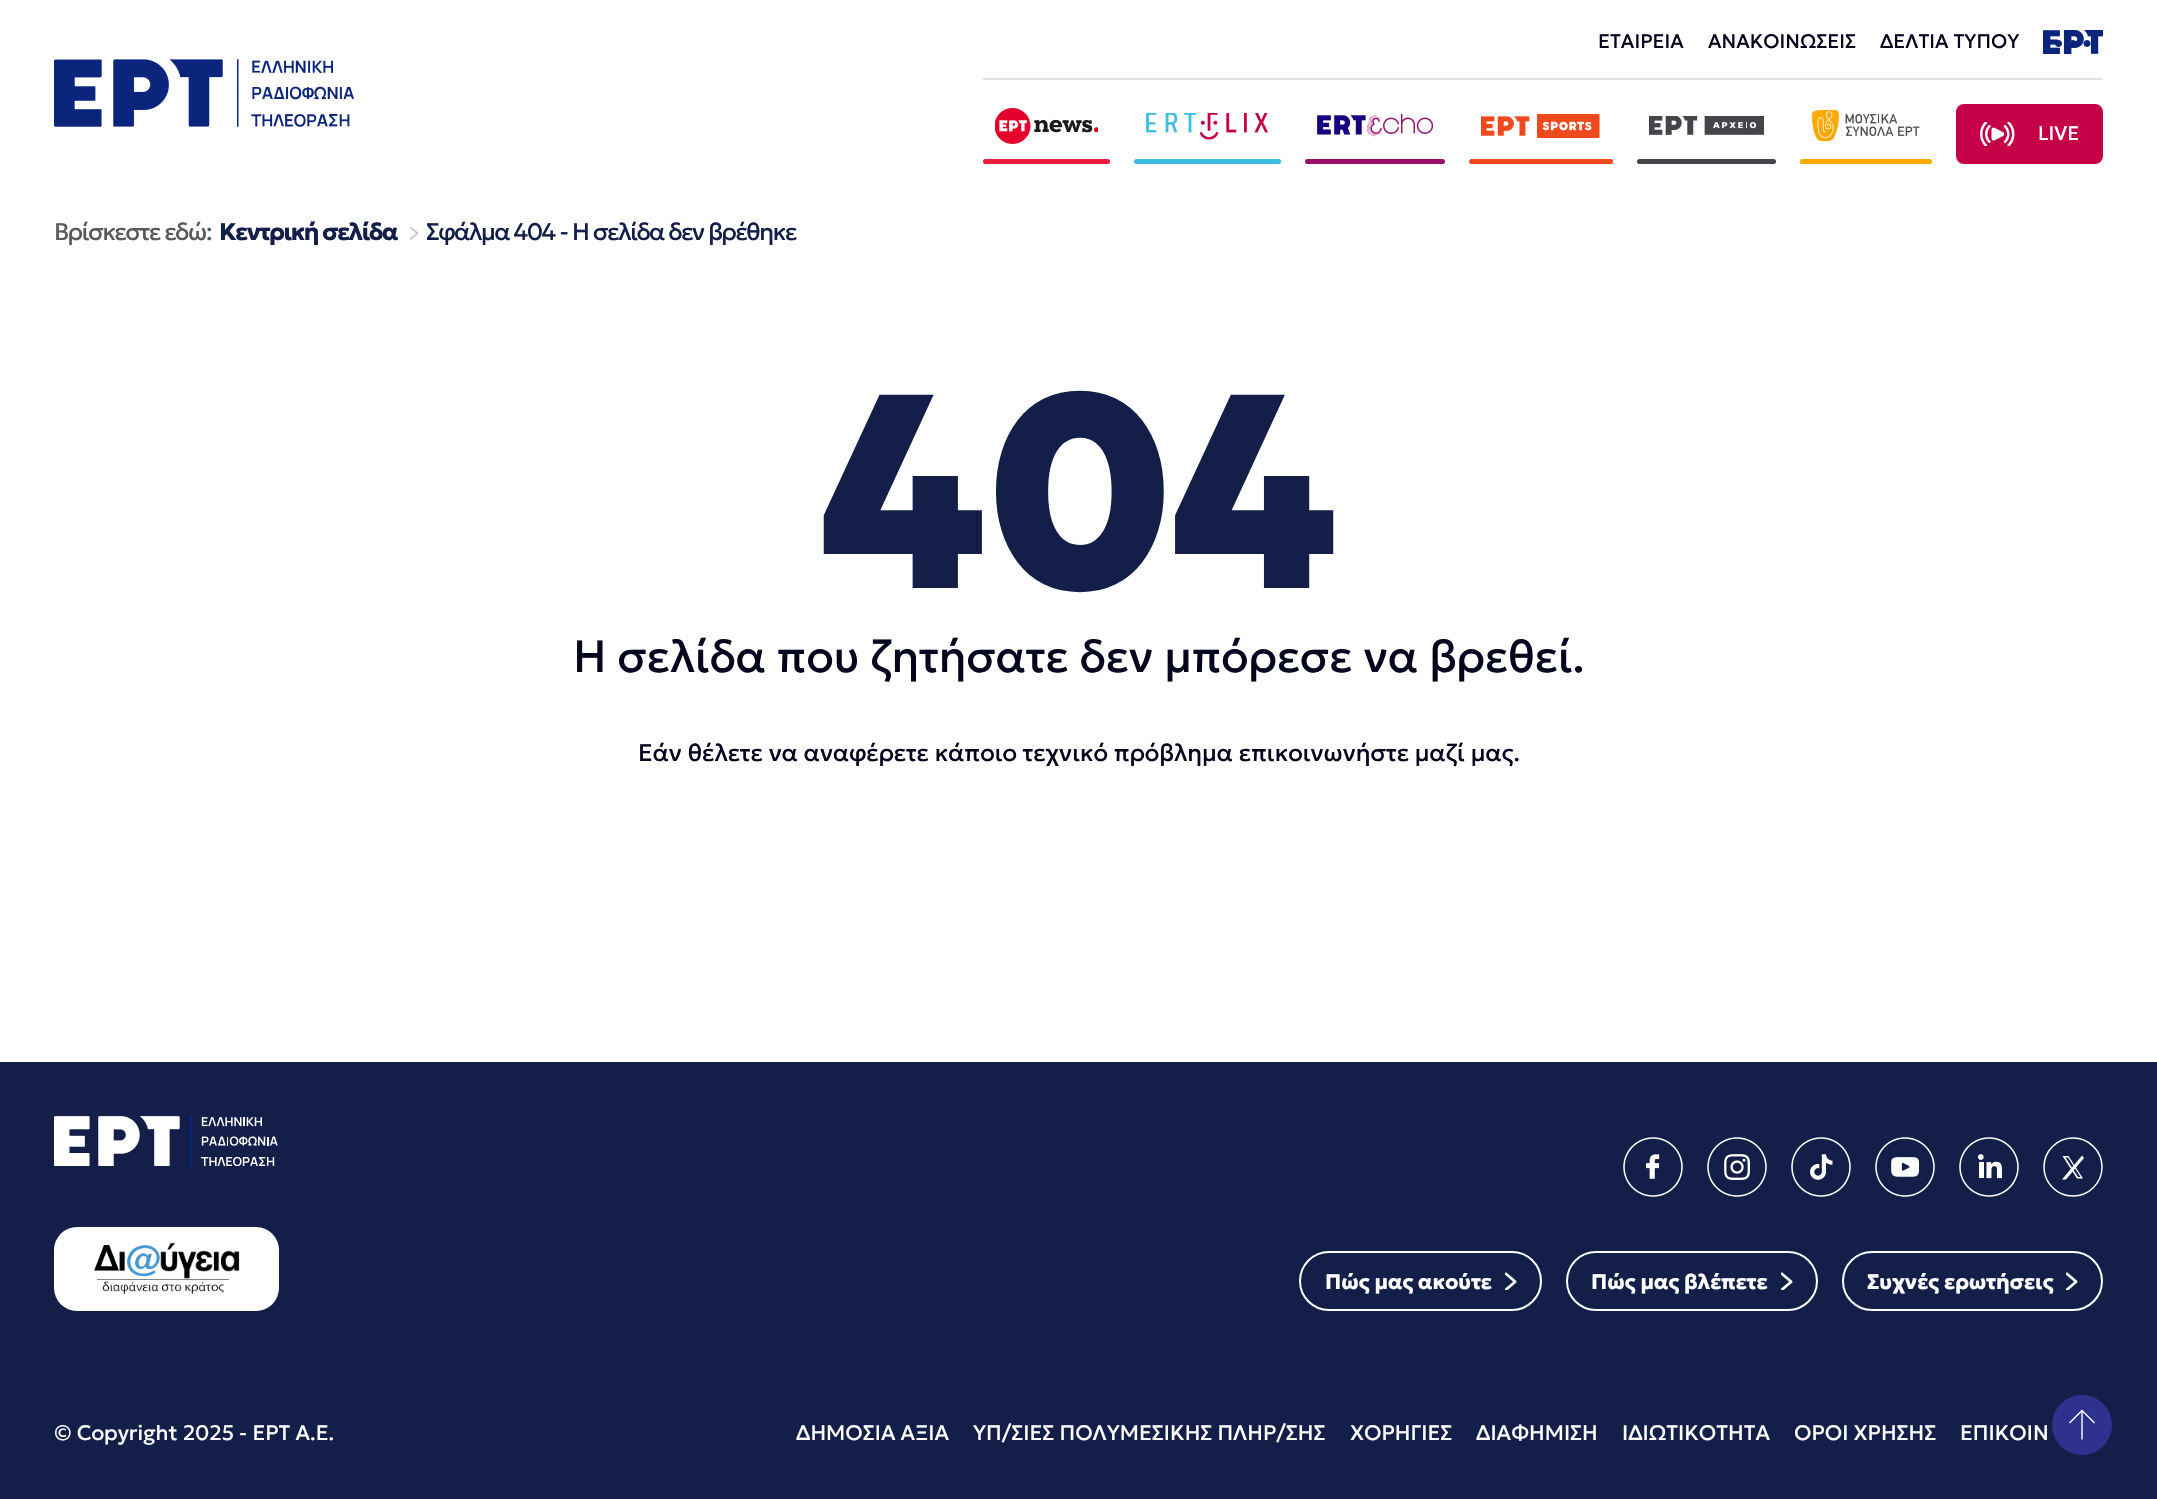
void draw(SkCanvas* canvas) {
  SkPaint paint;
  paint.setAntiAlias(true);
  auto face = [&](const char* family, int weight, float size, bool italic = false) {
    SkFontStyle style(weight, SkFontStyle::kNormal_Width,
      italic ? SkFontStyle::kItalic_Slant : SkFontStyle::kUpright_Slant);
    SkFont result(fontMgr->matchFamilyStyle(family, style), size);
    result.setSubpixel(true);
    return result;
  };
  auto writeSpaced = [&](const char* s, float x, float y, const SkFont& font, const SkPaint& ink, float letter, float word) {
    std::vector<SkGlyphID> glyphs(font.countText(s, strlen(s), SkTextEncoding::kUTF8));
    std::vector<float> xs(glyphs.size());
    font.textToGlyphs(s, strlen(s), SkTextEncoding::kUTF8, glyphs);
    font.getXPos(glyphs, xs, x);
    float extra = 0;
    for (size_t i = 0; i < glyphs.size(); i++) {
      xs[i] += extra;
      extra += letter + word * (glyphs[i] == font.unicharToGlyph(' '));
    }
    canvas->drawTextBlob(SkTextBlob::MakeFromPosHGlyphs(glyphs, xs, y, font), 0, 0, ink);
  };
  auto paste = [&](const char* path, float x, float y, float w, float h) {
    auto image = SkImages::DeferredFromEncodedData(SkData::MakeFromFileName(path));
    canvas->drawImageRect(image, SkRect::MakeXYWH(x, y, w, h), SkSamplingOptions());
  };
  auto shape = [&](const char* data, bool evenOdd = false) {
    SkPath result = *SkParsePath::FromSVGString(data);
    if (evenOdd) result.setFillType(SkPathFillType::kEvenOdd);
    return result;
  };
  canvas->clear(0xffffffff);
  paste("img/1.png", 54, 59, 300, 68);
  paste("img/2.png", 2043, 30, 60, 24);
  paint.setColor(0xffe3e3e3);
  canvas->drawRect(SkRect::MakeXYWH(983, 78, 1120, 2), paint);
  paste("img/3.png", 995, 108, 103, 36);
  paint.setColor(0xffed1a3b);
  canvas->drawRoundRect(SkRect::MakeXYWH(983, 159, 127, 5), 2.5f, 2.5f, paint);
  paste("img/4.png", 1146, 113, 122, 27);
  paint.setColor(0xff3cbee3);
  canvas->drawRoundRect(SkRect::MakeXYWH(1134, 159, 147, 5), 2.5f, 2.5f, paint);
  paste("img/5.png", 1317, 114, 116, 23);
  paint.setColor(0xff991069);
  canvas->drawRoundRect(SkRect::MakeXYWH(1305, 159, 140, 5), 2.5f, 2.5f, paint);
  paste("img/6.png", 1481, 114, 119, 24);
  paint.setColor(0xfff1491e);
  canvas->drawRoundRect(SkRect::MakeXYWH(1469, 159, 144, 5), 2.5f, 2.5f, paint);
  paste("img/7.png", 1649, 116, 115, 19);
  paint.setColor(0xff43454b);
  canvas->drawRoundRect(SkRect::MakeXYWH(1637, 159, 139, 5), 2.5f, 2.5f, paint);
  paste("img/8.png", 1812, 110, 108, 31);
  paint.setColor(0xffffa800);
  canvas->drawRoundRect(SkRect::MakeXYWH(1800, 159, 132, 5), 2.5f, 2.5f, paint);
  paint.setColor(0xffc60046);
  canvas->drawRoundRect(SkRect::MakeXYWH(1956, 104, 147, 60), 8, 8, paint);
  paste("img/9.png", 1980, 122, 35, 24);
  paste("img/10.png", 410, 227, 9, 13);
  paint.setColor(0xff131f48);
  canvas->drawRect(SkRect::MakeXYWH(0, 1062, 2157, 437), paint);
  paste("img/11.png", 54, 1116, 224, 50);
  paint.setColor(0xffffffff);
  canvas->drawRoundRect(SkRect::MakeXYWH(54, 1227, 225, 84), 23, 23, paint);
  paste("img/12.png", 94, 1242, 146, 52);
  paste("img/13.png", 1623, 1137, 60, 60);
  paste("img/14.png", 1707, 1137, 60, 60);
  paste("img/15.png", 1791, 1137, 60, 60);
  paste("img/16.png", 1875, 1137, 60, 60);
  paste("img/17.png", 1959, 1137, 60, 60);
  paint.setStroke(true);
  paint.setStrokeWidth(1.5f);
  canvas->drawCircle(2073, 1167, 29, paint);
  paint.setStroke(false);
  canvas->drawPath(shape("M2072.5 1168.5L2065.5 1157.5H2068L2080.5 1177H2078ZM2062.5 1156L2077 1178.5H2083L2068.5 1156Z"), paint);
  canvas->drawPath(shape("M2080 1158L2062 1179.5H2066L2084 1158L2082 1155.5Z"), paint);
  paint.setStroke(true);
  paint.setStrokeWidth(2);
  canvas->drawRoundRect(SkRect::MakeXYWH(1300, 1252, 241, 58), 29, 29, paint);
  paste("img/18.png", 1505, 1272, 12, 18);
  canvas->drawRoundRect(SkRect::MakeXYWH(1567, 1252, 250, 58), 29, 29, paint);
  paste("img/18.png", 1781, 1272, 12, 18);
  canvas->drawRoundRect(SkRect::MakeXYWH(1843, 1252, 259, 58), 29, 29, paint);
  paste("img/18.png", 2066, 1272, 12, 18);
  paint.setStroke(false);
  paint.setColor(0xff2f318e);
  canvas->drawCircle(2082, 1425, 30, paint);
  paint.setStroke(true);
  paint.setStrokeWidth(1.4f);
  paint.setColor(0xffffffff);
  canvas->drawPath(shape("M2082 1439.5V1410.5M2069.5 1423L2082 1410.5L2094.5 1423"), paint);
  auto f0 = face("Geologica", 400, 19.5f);
  paint.setStroke(false);
  paint.setColor(0xff05061e);
  {
    const struct { const char* s; float x, y; } items[] = {
      {"ΕΤΑΙΡΕΙΑ", 1598, 48},
      {"ΑΝΑΚΟΙΝΩΣΕΙΣ", 1708, 48},
      {"ΔΕΛΤΙΑ ΤΥΠΟΥ", 1880, 48},
    };
    for (auto [s, x, y] : items) {
      canvas->drawString(s, x, y, f0, paint);
    }
  }
  paint.setColor(0xffffffff);
  canvas->drawString("LIVE", 2038, 140, f0, paint);
  auto f1 = face("Geologica", 400, 24);
  paint.setColor(0xff5a5a5a);
  writeSpaced("Βρίσκεστε εδώ:", 54, 240, f1, paint, -1.35f, 0);
  auto f2 = face("Geologica", 700, 24);
  paint.setColor(0xff131f48);
  writeSpaced("Κεντρική σελίδα", 219, 240, f2, paint, -1.35f, 0);
  writeSpaced("Σφάλμα 404 - Η σελίδα δεν βρέθηκε", 426, 240, f1, paint, -1.35f, 0);
  auto f3 = face("Geologica", 900, 276);
  writeSpaced("404", 821, 588, f3, paint, -2.5f, 0);
  auto f4 = face("Geologica", 400, 45);
  paint.setColor(0xff05061e);
  canvas->drawString("Η σελίδα που ζητήσατε δεν μπόρεσε να βρεθεί.", 573, 672, f4, paint);
  canvas->drawString("Εάν θέλετε να αναφέρετε κάποιο τεχνικό πρόβλημα επικοινωνήστε μαζί μας.", 638, 761, f1, paint);
  auto f5 = face("Geologica", 700, 21);
  paint.setColor(0xffffffff);
  {
    const struct { const char* s; float x, y; } items[] = {
      {"Πώς μας ακούτε", 1325, 1289},
      {"Πώς μας βλέπετε", 1591, 1289},
      {"Συχνές ερωτήσεις", 1867, 1289},
    };
    for (auto [s, x, y] : items) {
      canvas->drawString(s, x, y, f5, paint);
    }
  }
  auto f6 = face("Geologica", 400, 21);
  {
    const struct { const char* s; float x, y; } items[] = {
      {"© Copyright 2025 - ΕΡΤ Α.Ε.", 54, 1440},
      {"ΔΗΜΟΣΙΑ ΑΞΙΑ", 796, 1440},
      {"ΥΠ/ΣΙΕΣ ΠΟΛΥΜΕΣΙΚΗΣ ΠΛΗΡ/ΣΗΣ", 973, 1440},
      {"ΧΟΡΗΓΙΕΣ", 1350, 1440},
      {"ΔΙΑΦΗΜΙΣΗ", 1476, 1440},
      {"ΙΔΙΩΤΙΚΟΤΗΤΑ", 1622, 1440},
      {"ΟΡΟΙ ΧΡΗΣΗΣ", 1794, 1440},
      {"ΕΠΙΚΟΙΝ", 1960, 1440},
    };
    for (auto [s, x, y] : items) {
      canvas->drawString(s, x, y, f6, paint);
    }
  }
}
